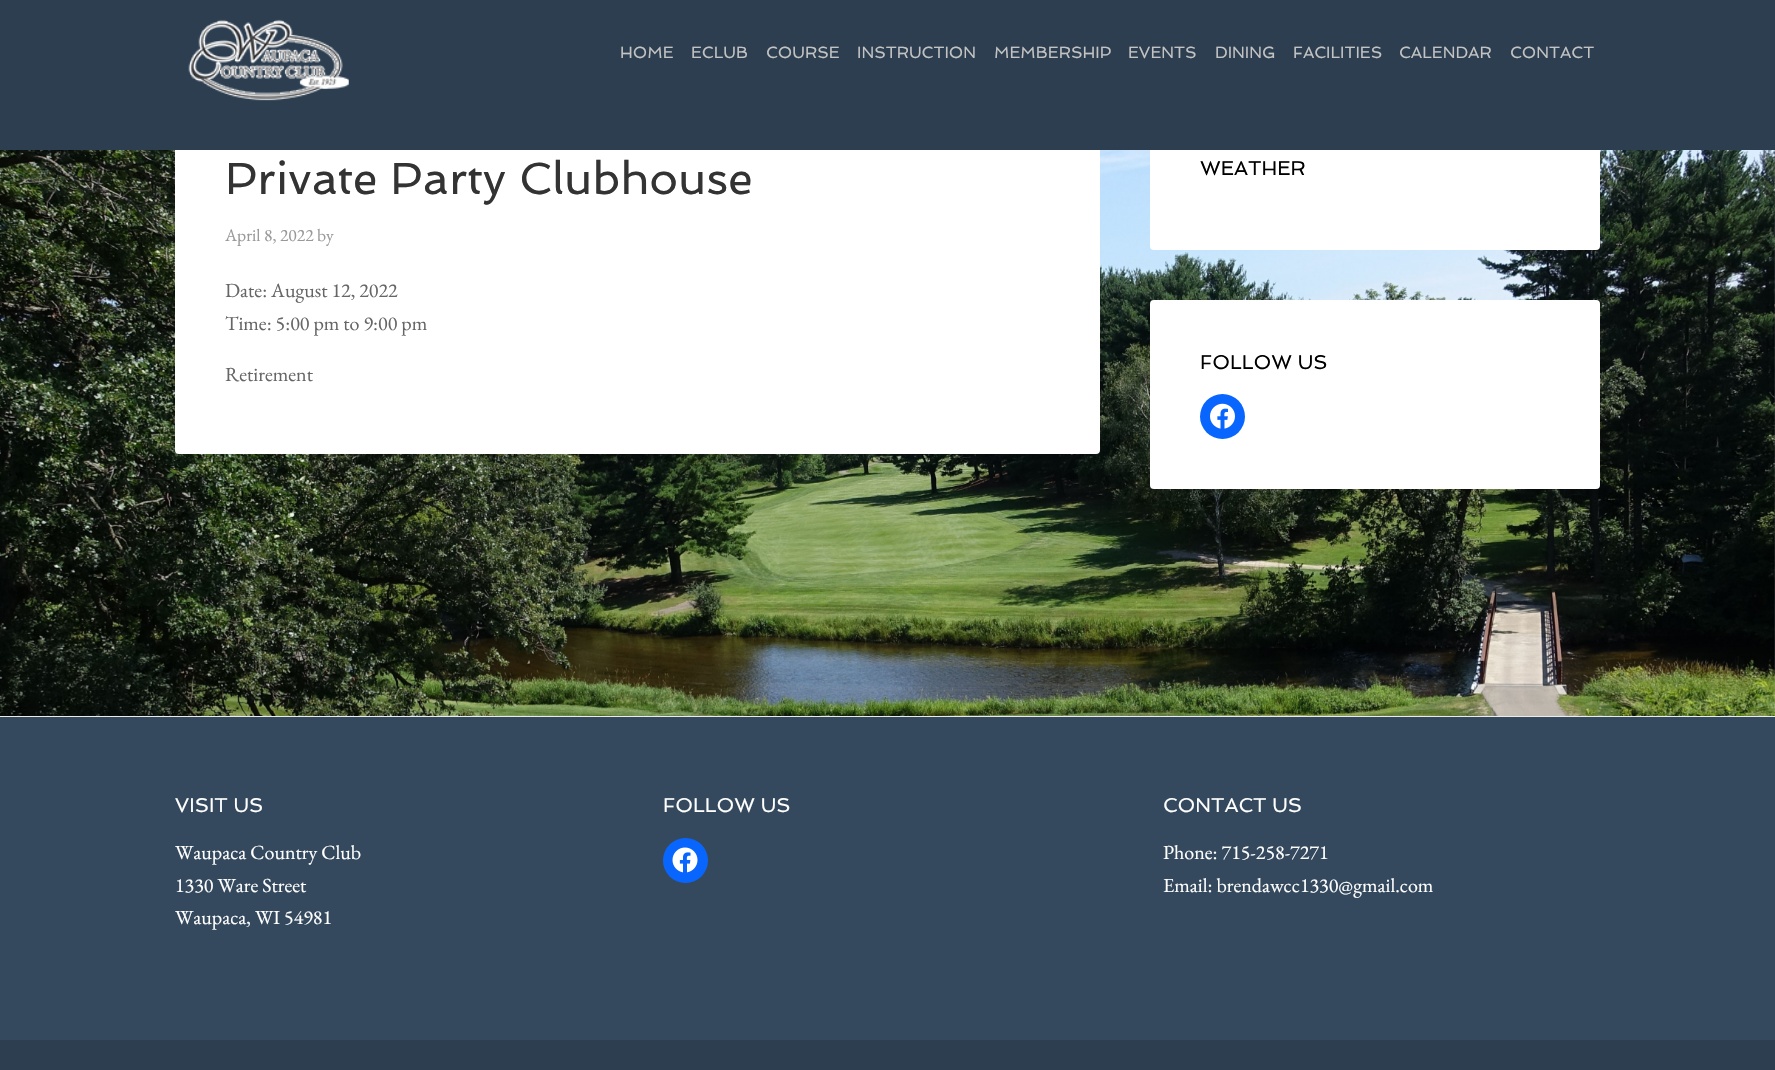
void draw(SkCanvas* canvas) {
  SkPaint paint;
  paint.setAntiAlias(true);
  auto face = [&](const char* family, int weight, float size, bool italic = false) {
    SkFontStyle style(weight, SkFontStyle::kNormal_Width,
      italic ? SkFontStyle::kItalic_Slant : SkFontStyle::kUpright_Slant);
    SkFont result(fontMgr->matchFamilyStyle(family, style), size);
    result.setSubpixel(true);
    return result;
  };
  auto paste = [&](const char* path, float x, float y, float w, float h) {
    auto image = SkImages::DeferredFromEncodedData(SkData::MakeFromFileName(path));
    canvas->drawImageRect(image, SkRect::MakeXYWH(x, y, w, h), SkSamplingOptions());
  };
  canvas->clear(0xffffffff);
  paste("img/1.png", 0, 150, 1775, 566);
  paint.setColor(0xffffffff);
  canvas->drawRoundRect(SkRect::MakeXYWH(175, 106, 925, 348), 4, 4, paint);
  canvas->drawRoundRect(SkRect::MakeXYWH(1150, 106, 450, 144), 4, 4, paint);
  paint.setColor(0xff2c3e50);
  canvas->drawRect(SkRect::MakeXYWH(0, 0, 1775, 150), paint);
  paste("img/2.png", 188, 19, 161, 82);
  paint.setColor(0xffffffff);
  canvas->drawRoundRect(SkRect::MakeXYWH(1150, 300, 450, 189), 4, 4, paint);
  paint.setColor(0xff0866ff);
  canvas->drawCircle(1222.5f, 416.5f, 22.5f, paint);
  paste("img/3.png", 1210, 403, 25, 26);
  paint.setColor(0xff34495e);
  canvas->drawRect(SkRect::MakeXYWH(0, 717, 1775, 323), paint);
  paint.setColor(0xffececec);
  canvas->drawRect(SkRect::MakeXYWH(0, 716, 1775, 1), paint);
  paint.setColor(0xff0866ff);
  canvas->drawCircle(685.5f, 860.5f, 22.5f, paint);
  paste("img/4.png", 672, 847, 26, 26);
  paint.setColor(0xff2c3e50);
  canvas->drawRect(SkRect::MakeXYWH(0, 1040, 1775, 30), paint);
  auto f0 = face("Spinnaker", 400, 16.25f);
  paint.setColor(0xffc3c3c3);
  {
    const struct { const char* s; float x, y; } items[] = {
      {"HOME", 620, 58},
      {"ECLUB", 691, 58},
      {"COURSE", 766, 58},
      {"INSTRUCTION", 857, 58},
      {"MEMBERSHIP", 994, 58},
      {"EVENTS", 1128, 58},
      {"DINING", 1215, 58},
      {"FACILITIES", 1293, 58},
      {"CALENDAR", 1399, 58},
      {"CONTACT", 1510, 58},
    };
    for (auto [s, x, y] : items) {
      canvas->drawString(s, x, y, f0, paint);
    }
  }
  auto f1 = face("Spinnaker", 400, 45);
  paint.setColor(0xff333333);
  canvas->drawString("Private Party Clubhouse", 225, 194, f1, paint);
  auto f2 = face("EB Garamond", 400, 17.5f);
  paint.setColor(0xff999999);
  canvas->drawString("April 8, 2022 by", 225, 241, f2, paint);
  auto f3 = face("EB Garamond", 400, 20);
  paint.setColor(0xff666666);
  {
    const struct { const char* s; float x, y; } items[] = {
      {"Date: August 12, 2022", 225, 297},
      {"Time: 5:00 pm to 9:00 pm", 225, 330},
      {"Retirement", 225, 381},
    };
    for (auto [s, x, y] : items) {
      canvas->drawString(s, x, y, f3, paint);
    }
  }
  auto f4 = face("Spinnaker", 400, 20);
  paint.setColor(0xff000000);
  canvas->drawString("WEATHER", 1200, 175, f4, paint);
  canvas->drawString("FOLLOW US", 1200, 369, f4, paint);
  paint.setColor(0xffffffff);
  canvas->drawString("VISIT US", 175, 812, f4, paint);
  {
    const struct { const char* s; float x, y; } items[] = {
      {"Waupaca Country Club", 175, 859},
      {"1330 Ware Street", 175, 892},
      {"Waupaca, WI 54981", 175, 924},
    };
    for (auto [s, x, y] : items) {
      canvas->drawString(s, x, y, f3, paint);
    }
  }
  canvas->drawString("FOLLOW US", 663, 812, f4, paint);
  canvas->drawString("CONTACT US", 1163, 812, f4, paint);
  canvas->drawString("Phone: 715-258-7271", 1163, 859, f3, paint);
  canvas->drawString("Email: brendawcc1330@gmail.com", 1163, 892, f3, paint);
}
